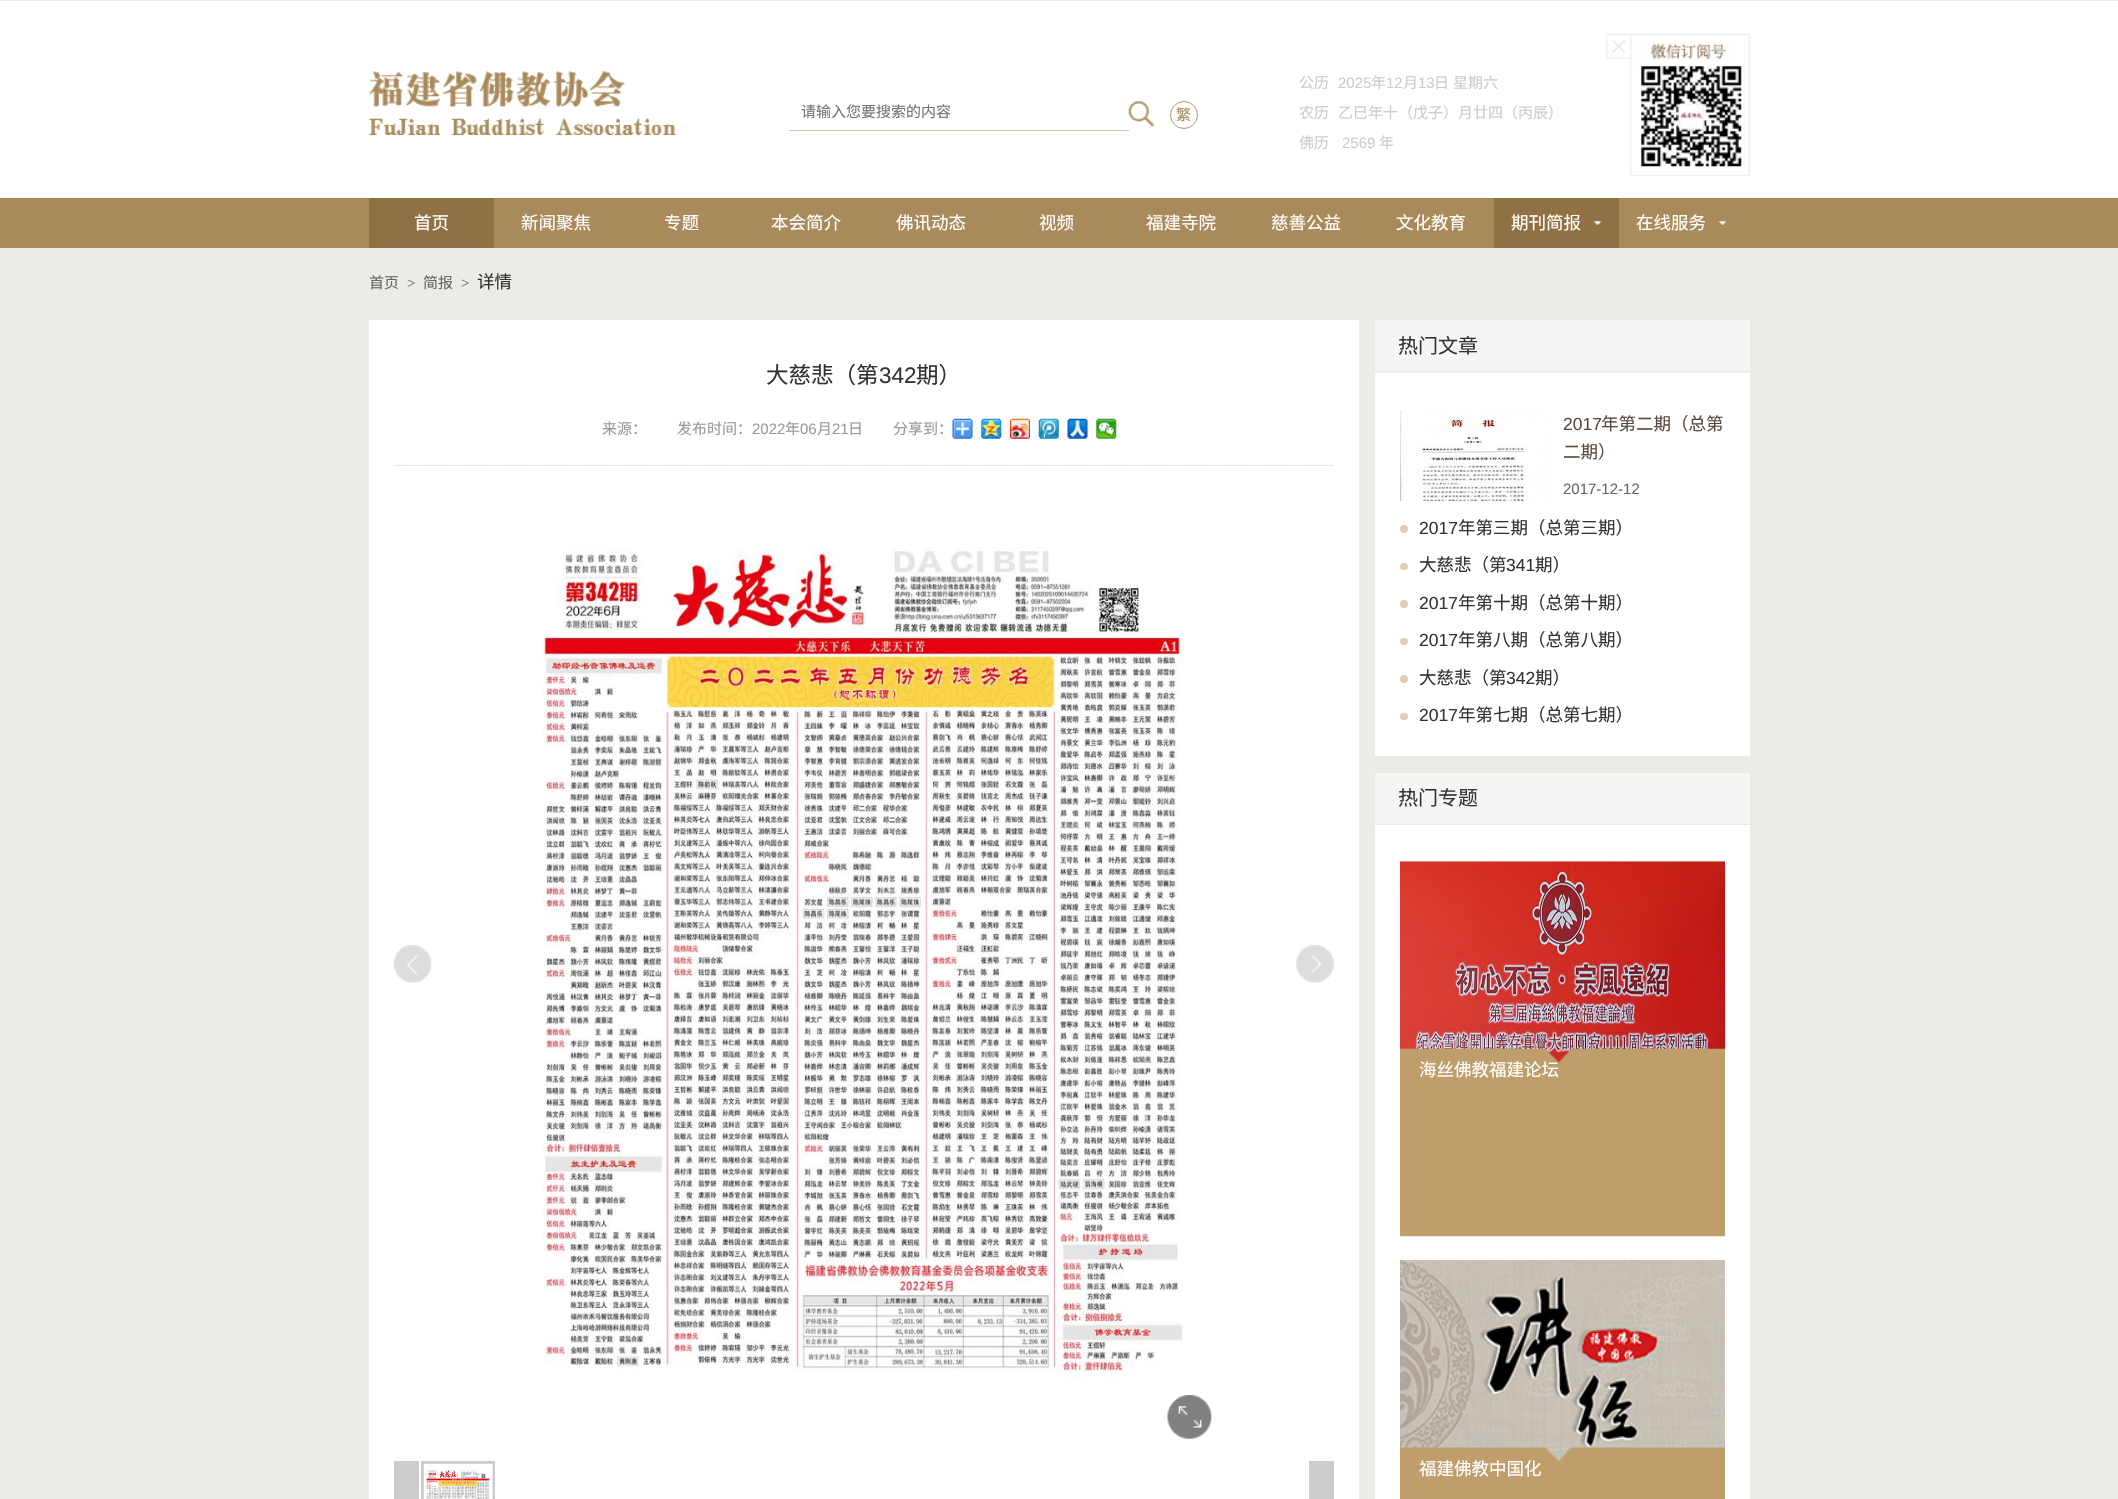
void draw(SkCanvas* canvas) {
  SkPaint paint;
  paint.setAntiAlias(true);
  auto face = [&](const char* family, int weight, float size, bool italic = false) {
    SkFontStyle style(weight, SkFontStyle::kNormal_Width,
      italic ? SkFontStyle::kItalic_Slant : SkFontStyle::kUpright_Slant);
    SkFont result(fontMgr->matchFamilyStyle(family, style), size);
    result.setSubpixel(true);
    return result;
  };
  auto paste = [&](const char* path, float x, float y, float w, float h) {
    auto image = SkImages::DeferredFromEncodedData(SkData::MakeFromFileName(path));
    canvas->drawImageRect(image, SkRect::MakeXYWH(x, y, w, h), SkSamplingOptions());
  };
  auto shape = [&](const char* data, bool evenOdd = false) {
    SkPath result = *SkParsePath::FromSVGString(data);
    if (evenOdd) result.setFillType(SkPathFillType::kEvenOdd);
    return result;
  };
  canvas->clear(0xffebebe8);
  paint.setColor(0xffffffff);
  canvas->drawRect(SkRect::MakeXYWH(0, 1, 2118, 197), paint);
  paste("img/1.png", 368, 71, 309, 64);
  paint.setColor(0xffd4c4ad);
  canvas->drawRect(SkRect::MakeXYWH(789, 130, 340, 1), paint);
  paste("img/2.png", 1128, 101, 26, 26);
  paint.setStroke(true);
  paint.setStrokeWidth(1);
  paint.setColor(0xffb2966c);
  canvas->drawCircle(1184, 115, 13.5f, paint);
  paste("img/3.png", 1606, 33, 144, 144);
  paste("img/4.png", 1641, 66, 101, 101);
  paint.setStroke(false);
  {
    const struct { float x, y, w, h; SkColor color; } items[] = {
      {0, 198, 2118, 50, 0xffa98a5b},
      {369, 198, 125, 50, 0xff907143},
      {1494, 198, 125, 50, 0xff907143},
    };
    for (auto [x, y, w, h, color] : items) {
      paint.setColor(color);
      canvas->drawRect(SkRect::MakeXYWH(x, y, w, h), paint);
    }
  }
  paste("img/5.png", 1593, 221, 9, 4);
  paste("img/6.png", 1718, 221, 9, 4);
  paint.setColor(0xffffffff);
  canvas->drawRect(SkRect::MakeXYWH(369, 320, 990, 1179), paint);
  paint.setStroke(true);
  paint.setStrokeWidth(1.2f);
  paint.setColor(0xffd3d3d3);
  paint.setPathEffect(SkDashPathEffect::Make({{1.25f, 1.25f}}, 0));
  canvas->drawPath(shape("M394 465.5H1334"), paint);
  paint.setPathEffect(nullptr);
  paste("img/7.png", 952, 418, 21, 21);
  paste("img/8.png", 981, 418, 21, 21);
  paste("img/9.png", 1010, 418, 20, 21);
  paste("img/10.png", 1038, 418, 21, 21);
  paste("img/11.png", 1067, 418, 21, 21);
  paste("img/12.png", 1096, 418, 21, 21);
  paste("img/13.png", 393, 945, 39, 38);
  paste("img/14.png", 407, 955, 11, 20);
  paste("img/15.png", 542, 548, 643, 832);
  paste("img/16.png", 1167, 1395, 45, 44);
  paste("img/17.png", 1296, 945, 38, 38);
  paste("img/18.png", 1311, 955, 11, 18);
  paint.setStroke(false);
  paint.setColor(0xffcccccc);
  canvas->drawRect(SkRect::MakeXYWH(394, 1461, 25, 38), paint);
  paint.setStroke(true);
  paint.setStrokeWidth(3);
  canvas->drawRect(SkRect::MakeXYWH(422.5f, 1462.5f, 71, 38), paint);
  paste("img/19.png", 423, 1463, 70, 36);
  paint.setStroke(false);
  {
    const struct { float x, y, w, h; SkColor color; } items[] = {
      {1309, 1461, 25, 38, 0xffcccccc},
      {1375, 373, 375, 383, 0xffffffff},
      {1375, 320, 375, 53, 0xfff5f5f5},
      {1375, 371, 375, 1, 0xffe8e8e8},
    };
    for (auto [x, y, w, h, color] : items) {
      paint.setColor(color);
      canvas->drawRect(SkRect::MakeXYWH(x, y, w, h), paint);
    }
  }
  paste("img/20.png", 1400, 410, 150, 92);
  paint.setColor(0xffdfceb5);
  canvas->drawCircle(1404, 529, 4, paint);
  canvas->drawRoundRect(SkRect::MakeXYWH(1400, 563, 8, 7), 3.5f, 3.5f, paint);
  canvas->drawCircle(1404, 604, 4, paint);
  canvas->drawRoundRect(SkRect::MakeXYWH(1400, 638, 8, 7), 3.5f, 3.5f, paint);
  canvas->drawCircle(1404, 679, 4, paint);
  canvas->drawRoundRect(SkRect::MakeXYWH(1400, 713, 8, 7), 3.5f, 3.5f, paint);
  {
    const struct { float x, y, w, h; SkColor color; } items[] = {
      {1375, 825, 375, 674, 0xffffffff},
      {1375, 773, 375, 51, 0xfff5f5f5},
      {1375, 824, 375, 1, 0xffe8e8e8},
    };
    for (auto [x, y, w, h, color] : items) {
      paint.setColor(color);
      canvas->drawRect(SkRect::MakeXYWH(x, y, w, h), paint);
    }
  }
  paste("img/21.png", 1400, 861, 325, 202);
  paste("img/22.png", 1400, 1048, 325, 189);
  paste("img/23.png", 1400, 1260, 325, 202);
  paste("img/24.png", 1400, 1447, 325, 52);
  auto f0 = face("Noto Sans CJK SC", 400, 15);
  paint.setColor(0xff757575);
  canvas->drawString("请输入您要搜索的内容", 801, 117, f0, paint);
  paint.setColor(0xffa98a5b);
  canvas->drawString("繁", 1176, 120, f0, paint);
  paint.setColor(0xffcccccc);
  canvas->drawString("公历", 1299, 88, f0, paint);
  auto f1 = face("Liberation Sans", 400, 15);
  canvas->drawString("2025", 1338, 88, f1, paint);
  canvas->drawString("年", 1371, 88, f0, paint);
  canvas->drawString("12", 1386, 88, f1, paint);
  canvas->drawString("月", 1403, 88, f0, paint);
  canvas->drawString("13", 1418, 88, f1, paint);
  {
    const struct { const char* s; float x, y; } items[] = {
      {"日", 1434, 88},
      {"星期六", 1453, 88},
      {"农历", 1299, 118},
      {"乙巳年十（戊子）月廿四（丙辰）", 1338, 118},
      {"佛历", 1299, 148},
    };
    for (auto [s, x, y] : items) {
      canvas->drawString(s, x, y, f0, paint);
    }
  }
  canvas->drawString("2569", 1342, 148, f1, paint);
  canvas->drawString("年", 1379, 148, f0, paint);
  auto f2 = face("Noto Sans CJK SC", 400, 17.5f);
  paint.setColor(0xffffffff);
  {
    const struct { const char* s; float x, y; } items[] = {
      {"首页", 414, 229},
      {"新闻聚焦", 521, 229},
      {"专题", 664, 229},
      {"本会简介", 771, 229},
      {"佛讯动态", 896, 229},
      {"视频", 1039, 229},
      {"福建寺院", 1146, 229},
      {"慈善公益", 1271, 229},
      {"文化教育", 1396, 229},
      {"期刊简报", 1511, 229},
      {"在线服务", 1636, 229},
    };
    for (auto [s, x, y] : items) {
      canvas->drawString(s, x, y, f2, paint);
    }
  }
  paint.setColor(0xff666666);
  canvas->drawString("首页", 369, 288, f0, paint);
  auto f3 = face("Liberation Serif", 400, 15);
  canvas->drawString(">", 407, 288, f3, paint);
  canvas->drawString("简报", 423, 288, f0, paint);
  canvas->drawString(">", 461, 288, f3, paint);
  paint.setColor(0xff333333);
  canvas->drawString("详情", 477, 288, f2, paint);
  auto f4 = face("Noto Sans CJK SC", 400, 22.5f);
  canvas->drawString("大慈悲（第", 766, 383, f4, paint);
  auto f5 = face("Liberation Sans", 400, 22.5f);
  canvas->drawString("342", 879, 383, f5, paint);
  canvas->drawString("期）", 916, 383, f4, paint);
  paint.setColor(0xff999999);
  canvas->drawString("来源：", 602, 434, f0, paint);
  canvas->drawString("发布时间：", 677, 434, f0, paint);
  canvas->drawString("2022", 752, 434, f1, paint);
  canvas->drawString("年", 785, 434, f0, paint);
  canvas->drawString("06", 800, 434, f1, paint);
  canvas->drawString("月", 817, 434, f0, paint);
  canvas->drawString("21", 832, 434, f1, paint);
  canvas->drawString("日", 848, 434, f0, paint);
  canvas->drawString("分享到：", 893, 434, f0, paint);
  auto f6 = face("Noto Sans CJK SC", 400, 20);
  paint.setColor(0xff333333);
  canvas->drawString("热门文章", 1398, 353, f6, paint);
  auto f7 = face("Liberation Sans", 400, 17.5f);
  paint.setColor(0xff59493f);
  canvas->drawString("2017", 1563, 430, f7, paint);
  canvas->drawString("年第二期（总第", 1601, 430, f2, paint);
  canvas->drawString("二期）", 1563, 458, f2, paint);
  paint.setColor(0xff666666);
  canvas->drawString("2017-12-12", 1563, 494, f1, paint);
  paint.setColor(0xff333333);
  canvas->drawString("2017", 1419, 534, f7, paint);
  canvas->drawString("年第三期（总第三期）", 1458, 534, f2, paint);
  canvas->drawString("大慈悲（第", 1419, 571, f2, paint);
  canvas->drawString("341", 1506, 571, f7, paint);
  canvas->drawString("期）", 1535, 571, f2, paint);
  canvas->drawString("2017", 1419, 609, f7, paint);
  canvas->drawString("年第十期（总第十期）", 1458, 609, f2, paint);
  canvas->drawString("2017", 1419, 646, f7, paint);
  canvas->drawString("年第八期（总第八期）", 1458, 646, f2, paint);
  canvas->drawString("大慈悲（第", 1419, 684, f2, paint);
  canvas->drawString("342", 1506, 684, f7, paint);
  canvas->drawString("期）", 1535, 684, f2, paint);
  canvas->drawString("2017", 1419, 721, f7, paint);
  canvas->drawString("年第七期（总第七期）", 1458, 721, f2, paint);
  canvas->drawString("热门专题", 1398, 805, f6, paint);
  paint.setColor(0xffffffff);
  canvas->drawString("海丝佛教福建论坛", 1419, 1076, f2, paint);
  canvas->drawString("福建佛教中国化", 1419, 1475, f2, paint);
}
